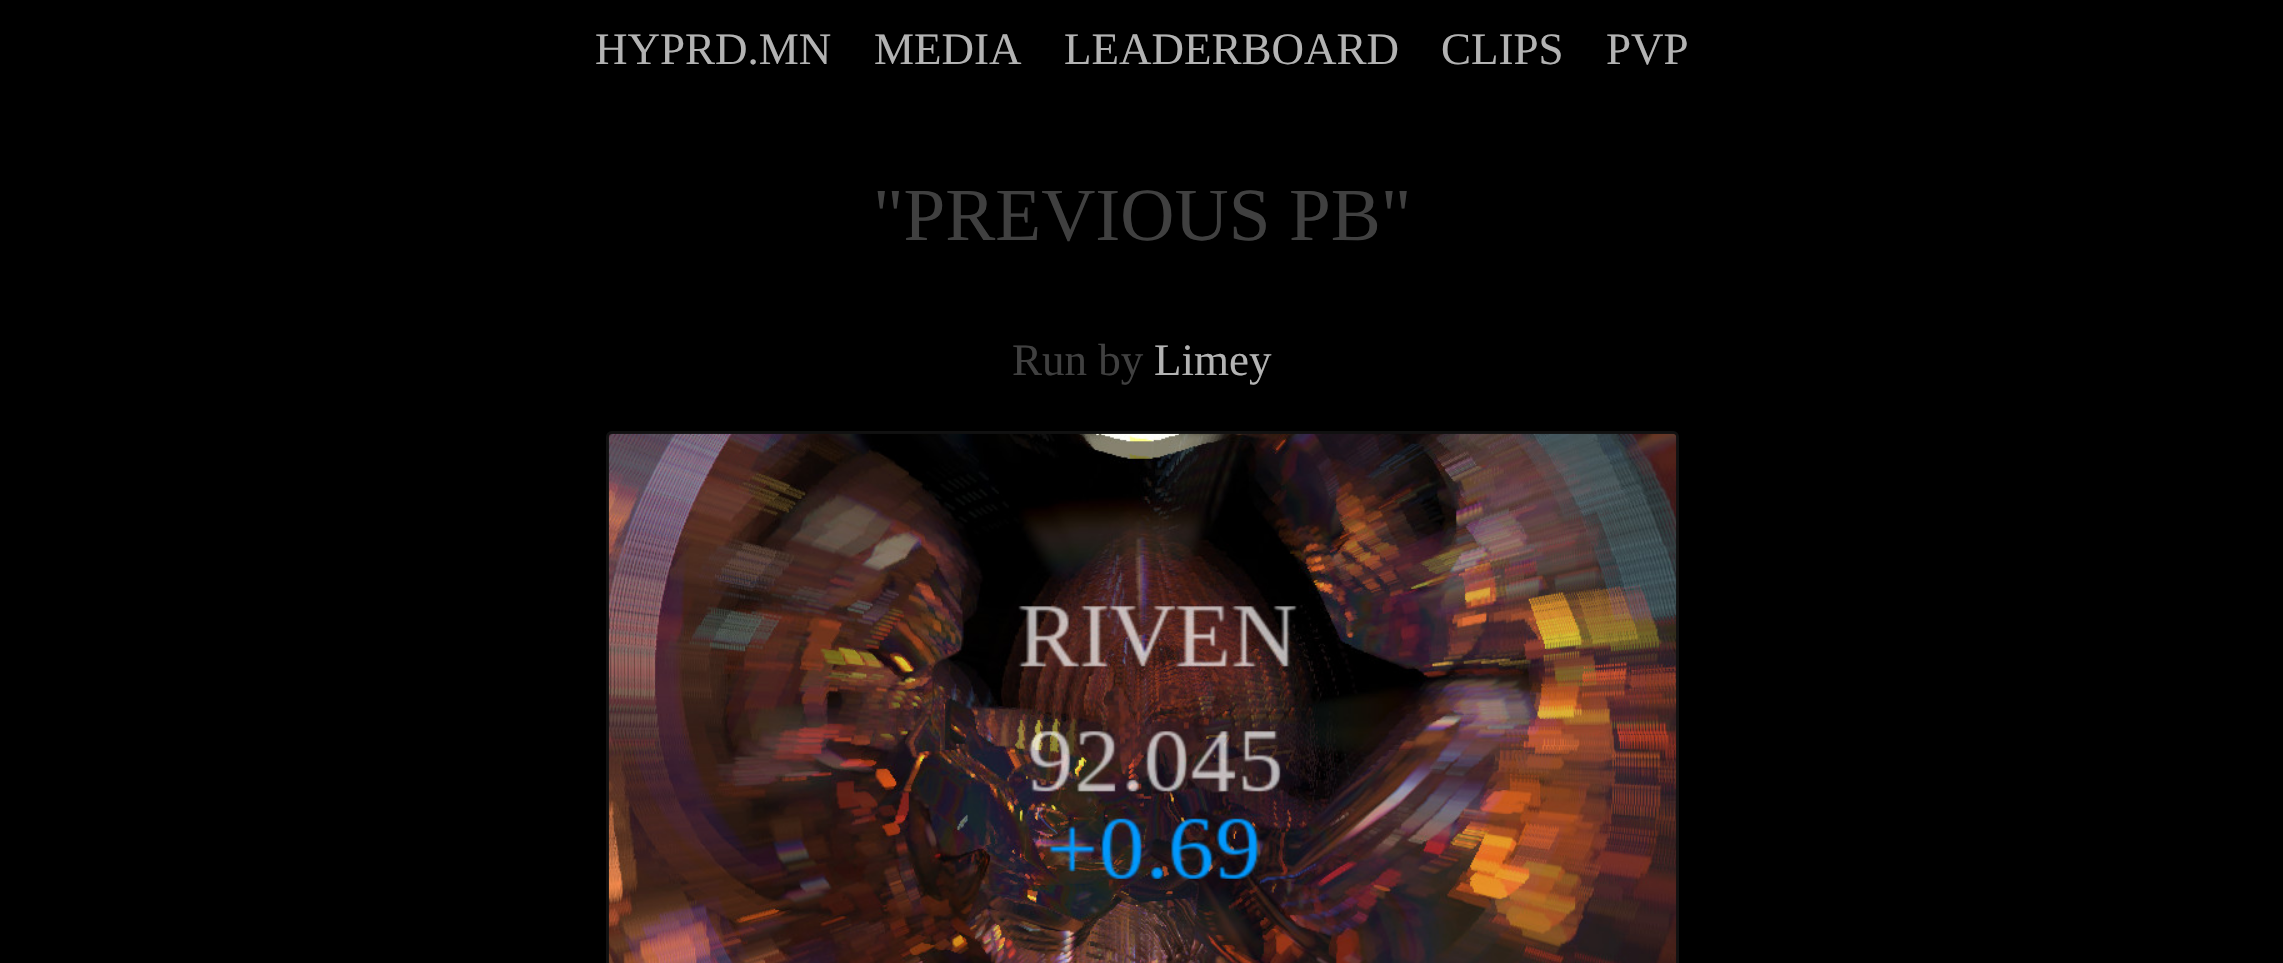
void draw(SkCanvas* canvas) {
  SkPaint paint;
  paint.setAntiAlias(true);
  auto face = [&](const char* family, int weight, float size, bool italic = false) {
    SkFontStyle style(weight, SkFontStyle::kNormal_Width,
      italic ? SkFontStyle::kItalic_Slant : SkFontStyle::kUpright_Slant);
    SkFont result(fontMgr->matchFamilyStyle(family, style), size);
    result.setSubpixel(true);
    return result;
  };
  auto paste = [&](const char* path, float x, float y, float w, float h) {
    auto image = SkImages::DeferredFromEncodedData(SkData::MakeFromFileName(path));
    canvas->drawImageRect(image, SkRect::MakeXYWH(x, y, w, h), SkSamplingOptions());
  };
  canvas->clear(0xff000000);
  paint.setStroke(true);
  paint.setStrokeWidth(3);
  paint.setColor(0xff111111);
  canvas->drawRoundRect(SkRect::MakeXYWH(607.5f, 432.5f, 1070, 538), 4.5f, 4.5f, paint);
  paste("img/1.png", 608, 433, 1069, 530);
  auto f0 = face("Tinos", 400, 45);
  paint.setStroke(false);
  paint.setColor(0xffb3b3b3);
  {
    const struct { const char* s; float x, y; } items[] = {
      {"HYPRD.MN", 595, 64},
      {"MEDIA", 874, 64},
      {"LEADERBOARD", 1064, 64},
      {"CLIPS", 1441, 64},
      {"PVP", 1606, 64},
    };
    for (auto [s, x, y] : items) {
      canvas->drawString(s, x, y, f0, paint);
    }
  }
  auto f1 = face("Tinos", 400, 75);
  paint.setColor(0xff404040);
  canvas->drawString("\"PREVIOUS PB\"", 873, 240, f1, paint);
  canvas->drawString("Run by", 1012, 375, f0, paint);
  paint.setColor(0xffb3b3b3);
  canvas->drawString("Limey", 1154, 375, f0, paint);
}
